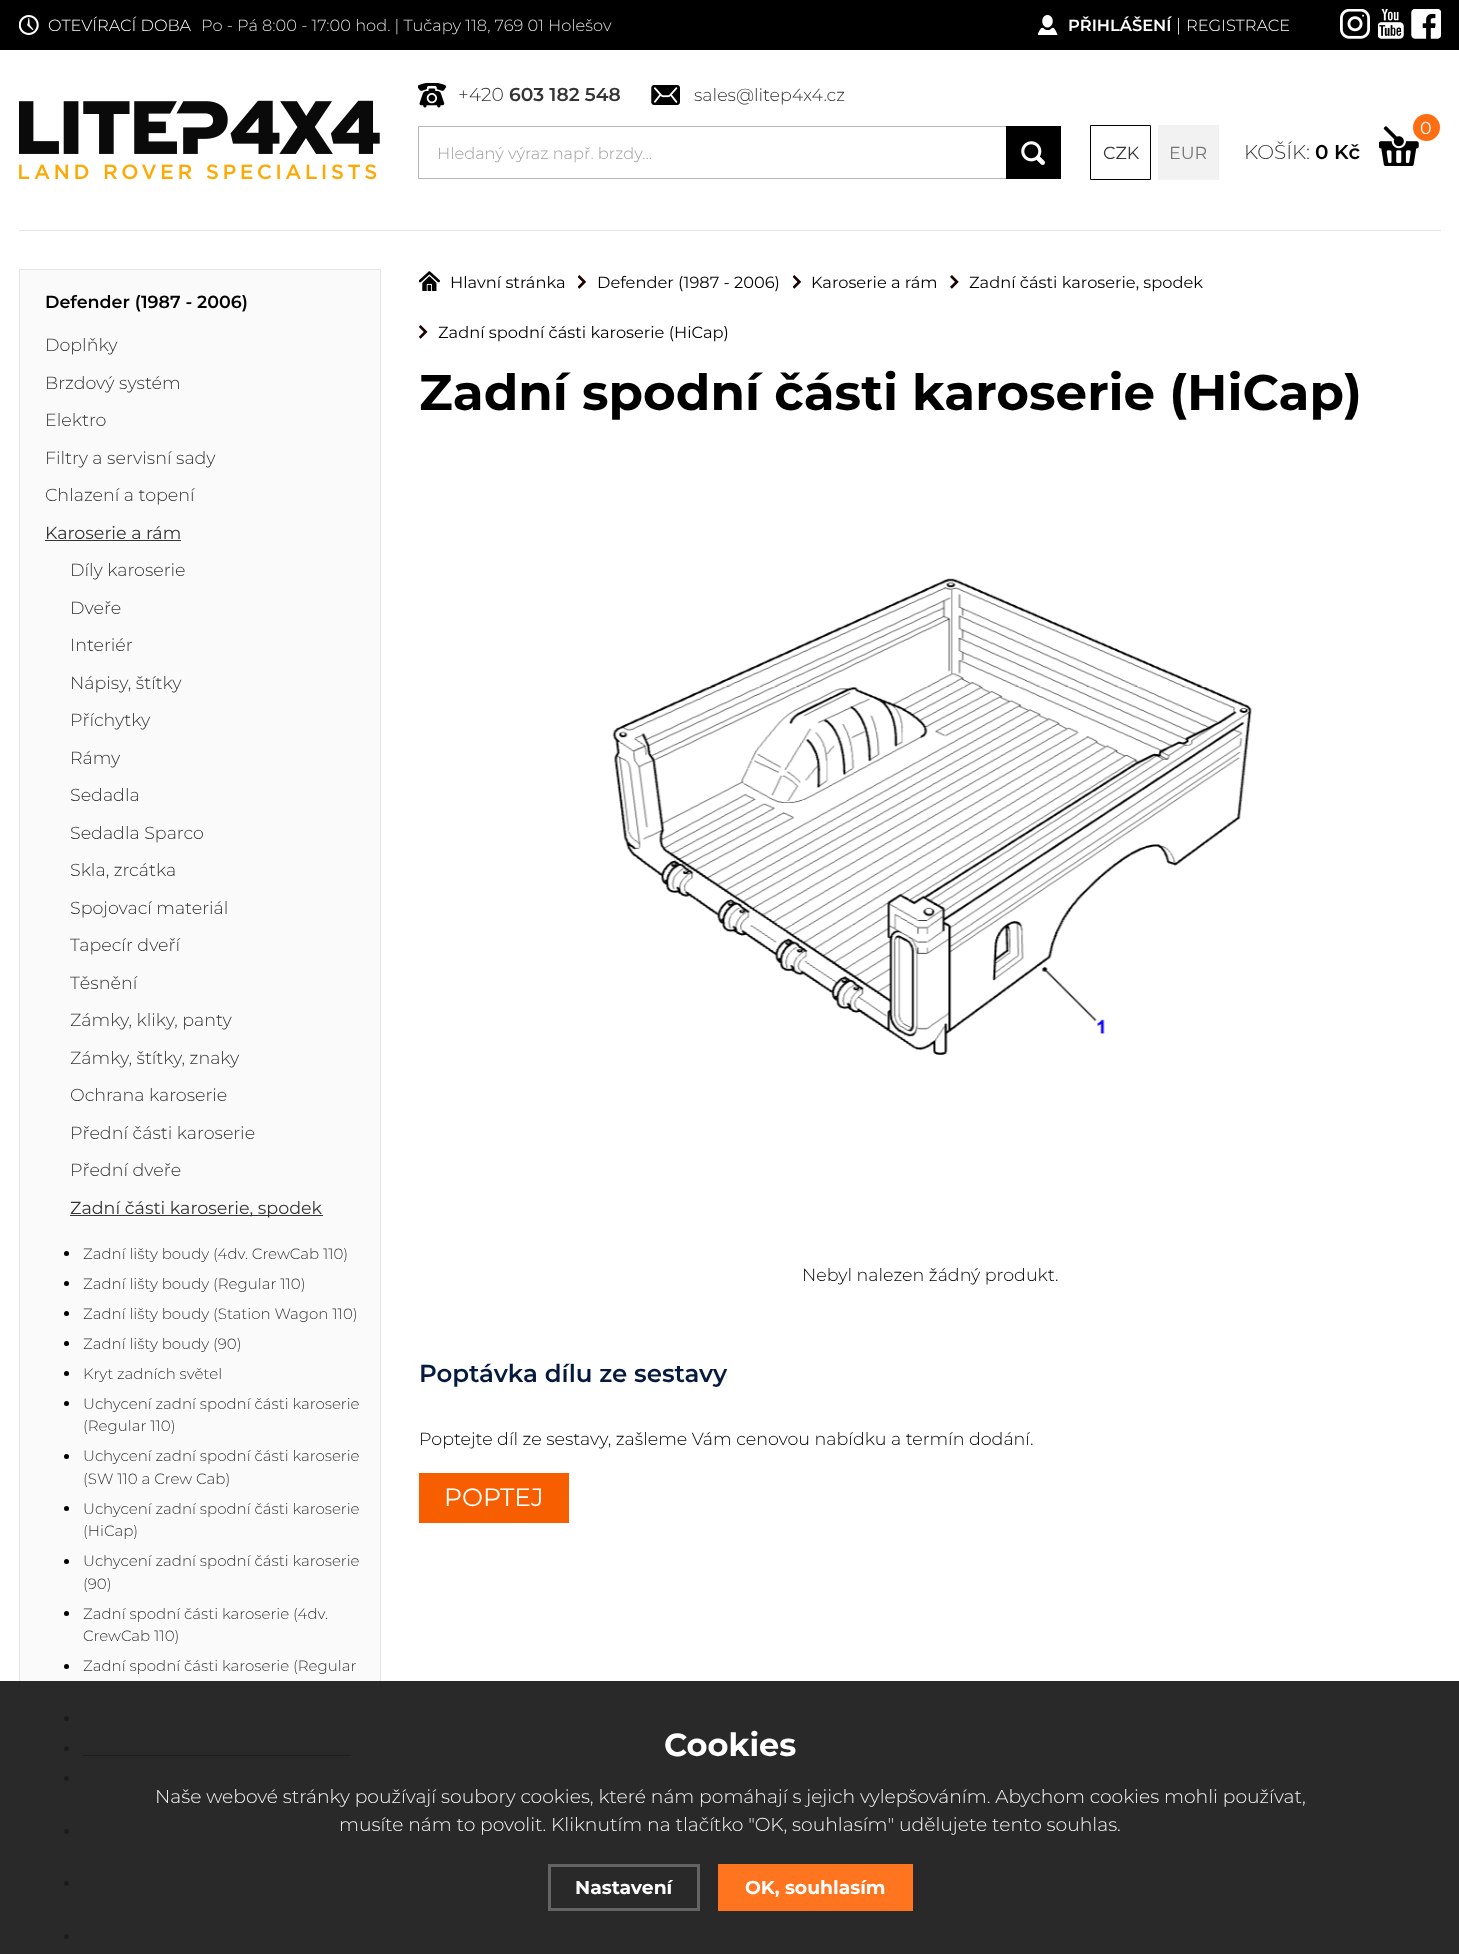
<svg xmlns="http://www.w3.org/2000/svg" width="1459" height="1954">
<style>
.a{font:300 16.25px Montserrat;fill:#fff}
.b{font:300 16.25px Montserrat;fill:#ddd}
.c{font:600 16.25px Montserrat;fill:#fff}
.d{font:300 17.5px Montserrat;fill:#fff}
.e{font:300 18.75px Montserrat;fill:#353535}
.f{font:600 18.75px Montserrat;fill:#353535}
.g{font:300 17.5px Montserrat;fill:#353535}
.h{font:300 16.25px Montserrat;fill:#9e9e9e}
.i{font:17.5px Montserrat;fill:#353535}
.j{font:17.5px Montserrat;fill:#757575}
.k{font:17.5px Montserrat;fill:#fff}
.l{font:300 20px Montserrat;fill:#353535}
.m{font:600 20px Montserrat;fill:#000}
.n{font:600 17.5px Montserrat;fill:#000}
.o{font:300 15px Montserrat;fill:#353535}
.p{font:16.25px Montserrat;fill:#000}
.q{font:bold 50px Montserrat;fill:#000}
.r{font:300 17.5px Montserrat;fill:#000}
.s{font:600 24.5px Montserrat;fill:#061a3f}
.t{font:25px Montserrat;fill:#fff}
.u{font:bold 32px Montserrat;fill:#fff}
.v{font:300 18.75px Montserrat;fill:#f4f4f4}
.w{font:bold 18.75px Montserrat;fill:#fff}
</style>
<rect width="100%" height="100%" fill="#fff"/>
<path fill="#000" d="M0 0h1459v50H0z"/>
<image href="1.png" x="19" y="15" width="20" height="20"/>
<image href="2.png" x="1038" y="15" width="20" height="20"/>
<image href="3.png" x="1340" y="9" width="30" height="30"/>
<image href="4.png" x="1378" y="9" width="26" height="30"/>
<image href="5.png" x="1411" y="9" width="30" height="30"/>
<path fill="#e6e6e6" d="M19 230h1422v1H19z"/>
<image href="6.png" x="19" y="100" width="361" height="80"/>
<image href="7.png" x="418" y="83" width="28" height="25"/>
<image href="8.png" x="651" y="85" width="29" height="20"/>
<path fill="none" stroke="#b5b5b5" d="M418.5 126.5h642v52H418.5z"/>
<path fill="#000" d="M1006 126h55v53H1006z"/>
<image href="9.png" x="1021" y="141" width="24" height="24"/>
<path fill="none" stroke="#000" d="M1090.5 125.5h60v54H1090.5z"/>
<path fill="#f2f2f2" d="M1158 125h61v55H1158z"/>
<image href="10.png" x="1379" y="126" width="40" height="40"/>
<circle fill="#ff6d12" cx="1426.5" cy="127.5" r="13.5"/>
<path fill="none" stroke="#e6e6e6" d="M19.5 269.5h361v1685H19.5z"/>
<path fill="#fafafa" d="M20 270h360v1684H20z"/>
<path fill="#353535" d="M45 540h136v1H45z"/>
<path fill="#353535" d="M70 1215h253v1H70z"/>
<circle fill="#000" cx="66.5" cy="1253.5" r="2.5"/>
<circle fill="#000" cx="66.5" cy="1283.5" r="2.5"/>
<circle fill="#000" cx="66.5" cy="1313.5" r="2.5"/>
<circle fill="#000" cx="66.5" cy="1343.5" r="2.5"/>
<circle fill="#000" cx="66.5" cy="1373.5" r="2.5"/>
<circle fill="#000" cx="66.5" cy="1403.5" r="2.5"/>
<circle fill="#000" cx="66.5" cy="1456.5" r="2.5"/>
<circle fill="#000" cx="66.5" cy="1508.5" r="2.5"/>
<circle fill="#000" cx="66.5" cy="1561.5" r="2.5"/>
<circle fill="#000" cx="66.5" cy="1613.5" r="2.5"/>
<circle fill="#000" cx="66.5" cy="1666.5" r="2.5"/>
<circle fill="#000" cx="66.5" cy="1718.5" r="2.5"/>
<circle fill="#000" cx="66.5" cy="1748.5" r="2.5"/>
<path fill="#353535" d="M83 1755h268v1H83z"/>
<circle fill="#000" cx="66.5" cy="1778.5" r="2.5"/>
<circle fill="#000" cx="66.5" cy="1831.5" r="2.5"/>
<circle fill="#000" cx="66.5" cy="1883.5" r="2.5"/>
<circle fill="#000" cx="66.5" cy="1936.5" r="2.5"/>
<image href="11.png" x="419" y="271" width="21" height="20"/>
<image href="12.png" x="578" y="275" width="8" height="14"/>
<image href="12.png" x="793" y="275" width="8" height="14"/>
<image href="13.png" x="950" y="275" width="9" height="14"/>
<image href="14.png" x="419" y="325" width="9" height="14"/>
<image href="15.png" x="612" y="578" width="640" height="477"/>
<path fill="#f65e00" d="M419 1473h150v50H419z"/>
<path fill="#1d1d1df2" d="M0 1681h1459v273H0z"/>
<path fill="none" stroke="#646465" stroke-width="3" d="M549.5 1865.5h149v44H549.5z"/>
<path fill="#ff741e" d="M718 1864h195v47H718z"/>
<text class="a" x="48" y="31">OTEVÍRACÍ DOBA</text>
<text class="b" x="201" y="31">Po - Pá 8:00 - 17:00 hod. | Tučapy 118, 769 01 Holešov</text>
<text class="c" x="1068" y="31">PŘIHLÁŠENÍ</text>
<text class="d" x="1176" y="31">|</text>
<text class="a" x="1186" y="31">REGISTRACE</text>
<text class="e" x="458" y="101">+420</text>
<text class="f" x="509" y="101">603 182 548</text>
<text class="g" x="694" y="101">sales@litep4x4.cz</text>
<text class="h" x="437" y="159">Hledaný výraz např. brzdy...</text>
<text class="i" x="1103" y="159">CZK</text>
<text class="j" x="1169" y="159">EUR</text>
<text class="k" x="1420" y="134">0</text>
<text class="l" x="1244" y="159">KOŠÍK:</text>
<text class="m" x="1315" y="159">0 Kč</text>
<text class="n" x="45" y="308">Defender (1987 - 2006)</text>
<text class="g" x="45" y="351">Doplňky</text>
<text class="g" x="45" y="389">Brzdový systém</text>
<text class="g" x="45" y="426">Elektro</text>
<text class="g" x="45" y="464">Filtry a servisní sady</text>
<text class="g" x="45" y="501">Chlazení a topení</text>
<text class="i" x="45" y="539">Karoserie a rám</text>
<text class="g" x="70" y="576">Díly karoserie</text>
<text class="g" x="70" y="614">Dveře</text>
<text class="g" x="70" y="651">Interiér</text>
<text class="g" x="70" y="689">Nápisy, štítky</text>
<text class="g" x="70" y="726">Příchytky</text>
<text class="g" x="70" y="764">Rámy</text>
<text class="g" x="70" y="801">Sedadla</text>
<text class="g" x="70" y="839">Sedadla Sparco</text>
<text class="g" x="70" y="876">Skla, zrcátka</text>
<text class="g" x="70" y="914">Spojovací materiál</text>
<text class="g" x="70" y="951">Tapecír dveří</text>
<text class="g" x="70" y="989">Těsnění</text>
<text class="g" x="70" y="1026">Zámky, kliky, panty</text>
<text class="g" x="70" y="1064">Zámky, štítky, znaky</text>
<text class="g" x="70" y="1101">Ochrana karoserie</text>
<text class="g" x="70" y="1139">Přední části karoserie</text>
<text class="g" x="70" y="1176">Přední dveře</text>
<text class="i" x="70" y="1214">Zadní části karoserie, spodek</text>
<text class="o" x="83" y="1259">Zadní lišty boudy (4dv. CrewCab 110)</text>
<text class="o" x="83" y="1289">Zadní lišty boudy (Regular 110)</text>
<text class="o" x="83" y="1319">Zadní lišty boudy (Station Wagon 110)</text>
<text class="o" x="83" y="1349">Zadní lišty boudy (90)</text>
<text class="o" x="83" y="1379">Kryt zadních světel</text>
<text class="o" x="83" y="1409">Uchycení zadní spodní části karoserie</text>
<text class="o" x="83" y="1431">(Regular 110)</text>
<text class="o" x="83" y="1461">Uchycení zadní spodní části karoserie</text>
<text class="o" x="83" y="1484">(SW 110 a Crew Cab)</text>
<text class="o" x="83" y="1514">Uchycení zadní spodní části karoserie</text>
<text class="o" x="83" y="1536">(HiCap)</text>
<text class="o" x="83" y="1566">Uchycení zadní spodní části karoserie</text>
<text class="o" x="83" y="1589">(90)</text>
<text class="o" x="83" y="1619">Zadní spodní části karoserie (4dv.</text>
<text class="o" x="83" y="1641">CrewCab 110)</text>
<text class="o" x="83" y="1671">Zadní spodní části karoserie (Regular</text>
<text class="p" x="450" y="288">Hlavní stránka</text>
<text class="p" x="597" y="288">Defender (1987 - 2006)</text>
<text class="p" x="811" y="288">Karoserie a rám</text>
<text class="p" x="969" y="288">Zadní části karoserie, spodek</text>
<text class="p" x="438" y="338">Zadní spodní části karoserie (HiCap)</text>
<text class="q" x="419" y="410">Zadní spodní části karoserie (HiCap)</text>
<text class="r" x="802" y="1281">Nebyl nalezen žádný produkt.</text>
<text class="s" x="419" y="1382">Poptávka dílu ze sestavy</text>
<text class="r" x="419" y="1445">Poptejte díl ze sestavy, zašleme Vám cenovou nabídku a termín dodání.</text>
<text class="t" x="444" y="1506">POPTEJ</text>
<text class="u" x="664" y="1756">Cookies</text>
<text class="v" x="155" y="1803">Naše webové stránky používají soubory cookies, které nám pomáhají s jejich vylepšováním. Abychom cookies mohli používat,</text>
<text class="v" x="339" y="1831">musíte nám to povolit. Kliknutím na tlačítko "OK, souhlasím" udělujete tento souhlas.</text>
<text class="w" x="575" y="1894">Nastavení</text>
<text class="w" x="745" y="1894">OK, souhlasím</text>
</svg>
